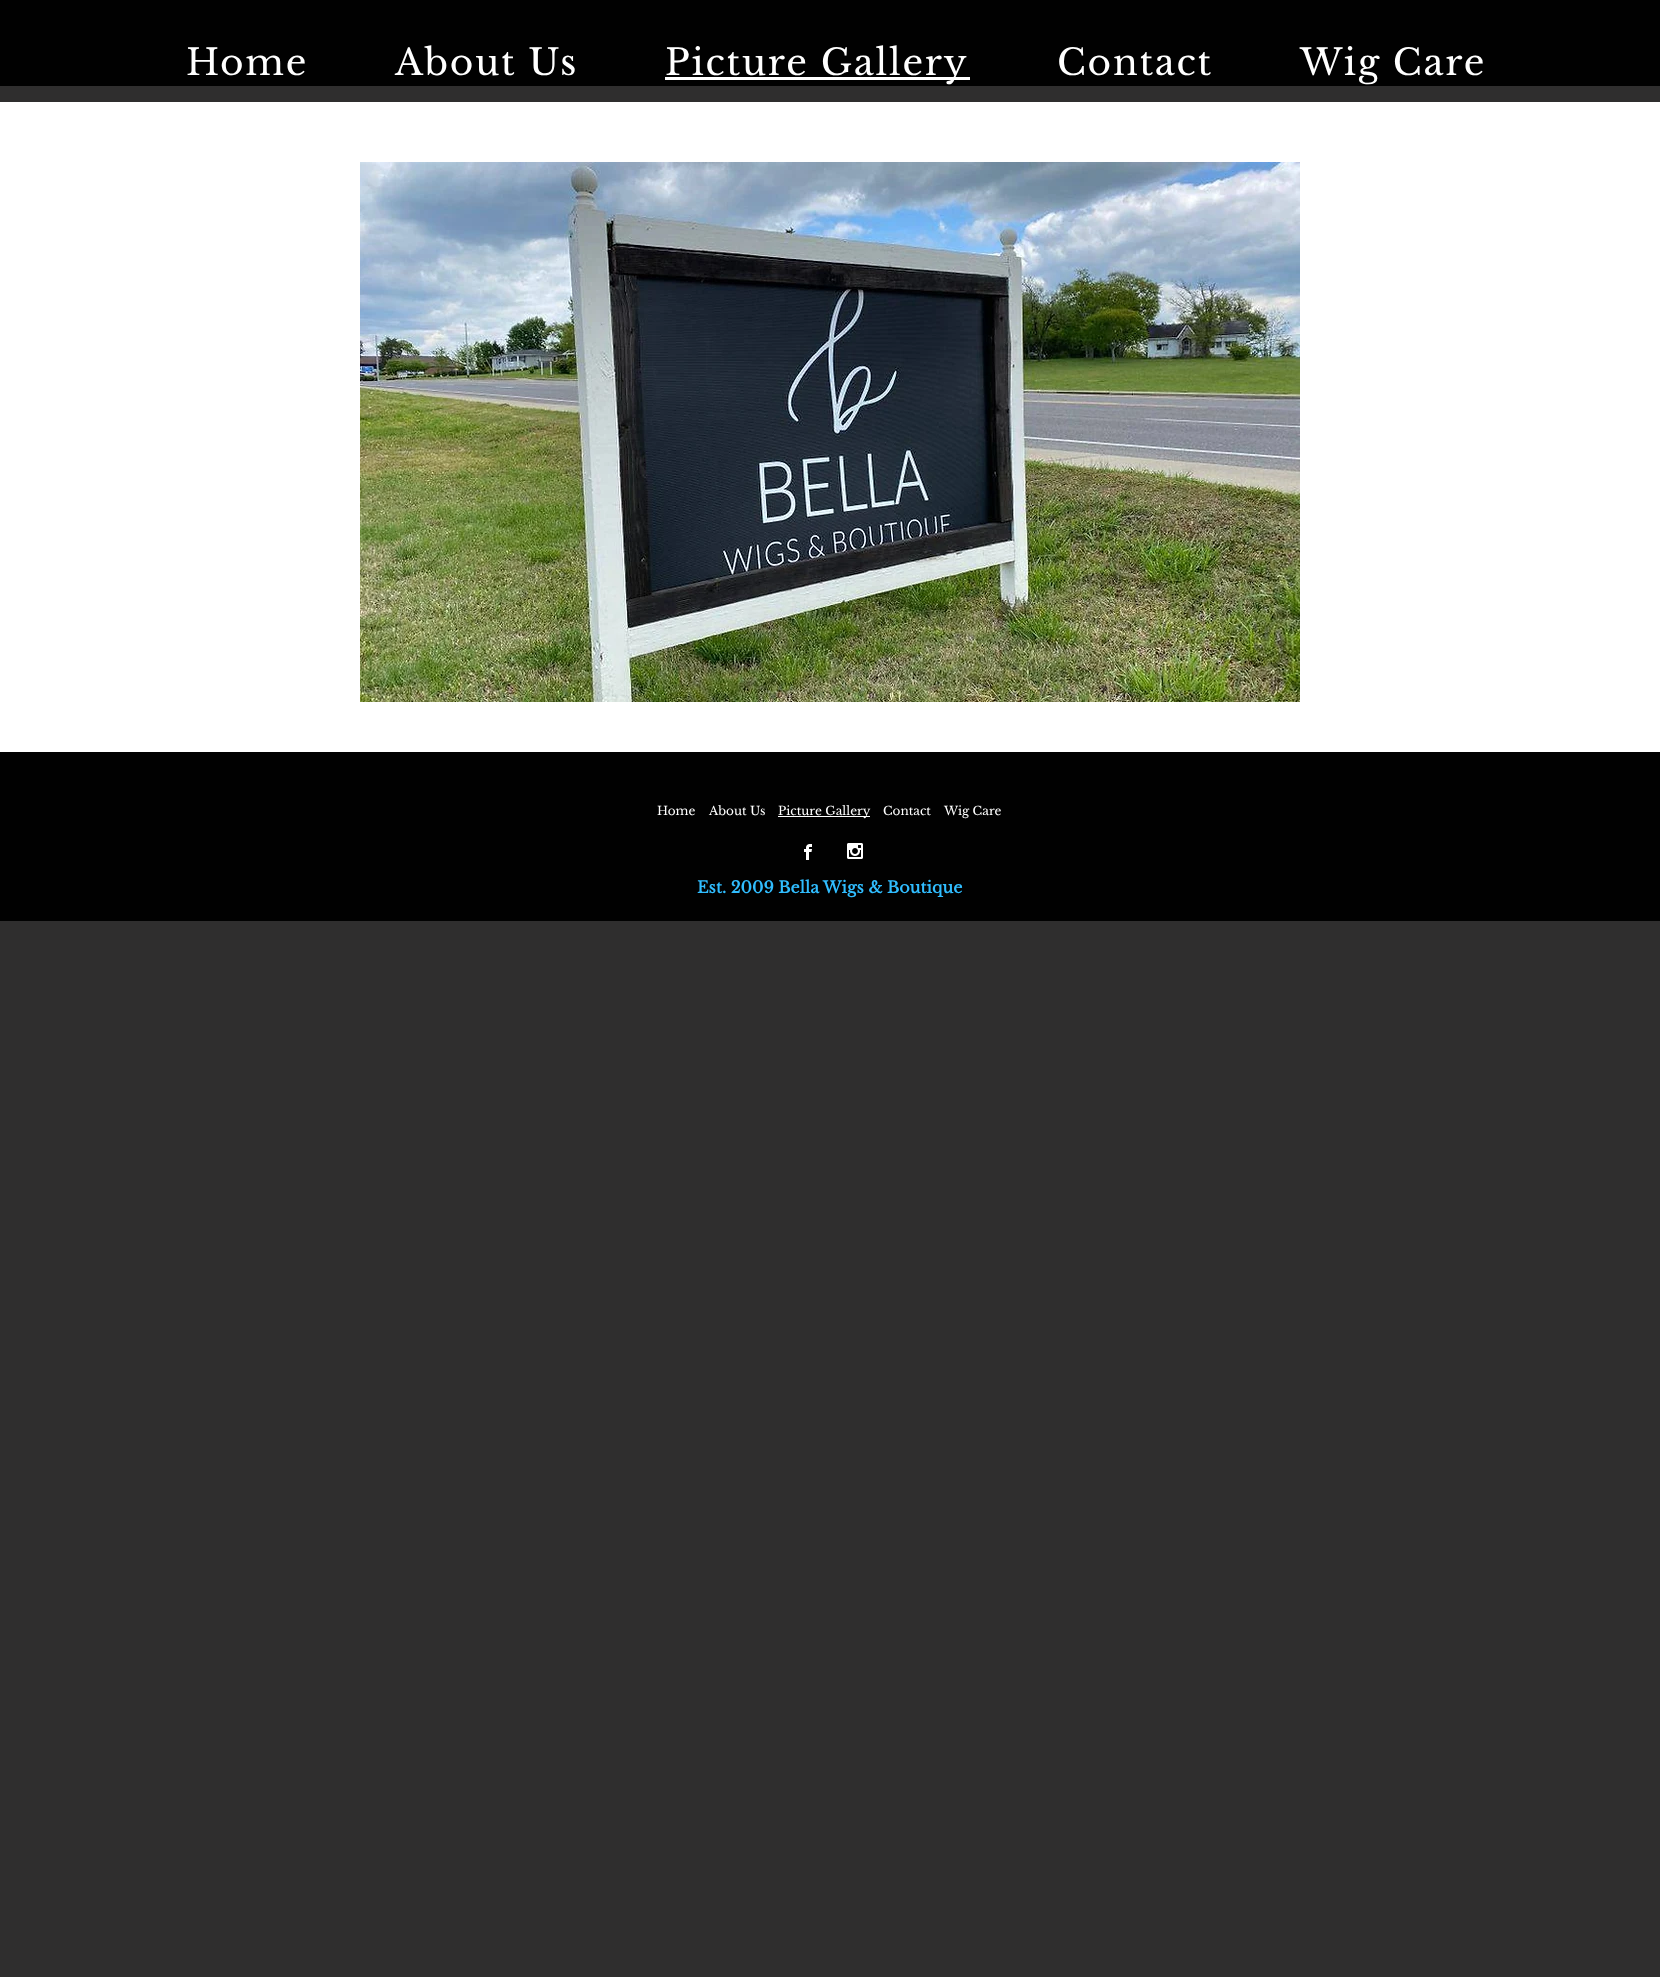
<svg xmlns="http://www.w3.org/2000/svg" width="1660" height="1977">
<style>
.a{font:36px Libre Baskerville;letter-spacing:1.75px;fill:#fff}
.b{font:12px Libre Baskerville;fill:#fff}
.c{font:bold 16px Libre Baskerville;fill:#30bdff}
</style>
<rect width="100%" height="100%" fill="#2f2e2e"/>
<path fill="#010101" d="M0 0h1660v86H0z"/>
<path fill="#fff" d="M665 77h305v3H665z"/>
<path fill="#fff" d="M0 102h1660v650H0z"/>
<image href="1.png" x="360" y="162" width="940" height="540"/>
<path fill="#010101" d="M0 752h1660v169H0z"/>
<path fill="#fff" d="M778 816h92v1H778z"/>
<image href="2.png" x="804" y="844" width="8" height="16"/>
<image href="3.png" x="847" y="843" width="16" height="16"/>
<text class="a" x="186" y="75">Home</text>
<text class="a" x="395" y="75">About Us</text>
<text class="a" x="665" y="75">Picture Gallery</text>
<text class="a" x="1057" y="75">Contact</text>
<text class="a" x="1300" y="75">Wig Care</text>
<text class="b" x="657" y="815">Home</text>
<text class="b" x="709" y="815">About Us</text>
<text class="b" x="778" y="815">Picture Gallery</text>
<text class="b" x="883" y="815">Contact</text>
<text class="b" x="944" y="815">Wig Care</text>
<text class="c" x="697" y="893">Est. 2009 Bella Wigs &amp; Boutique</text>
</svg>
